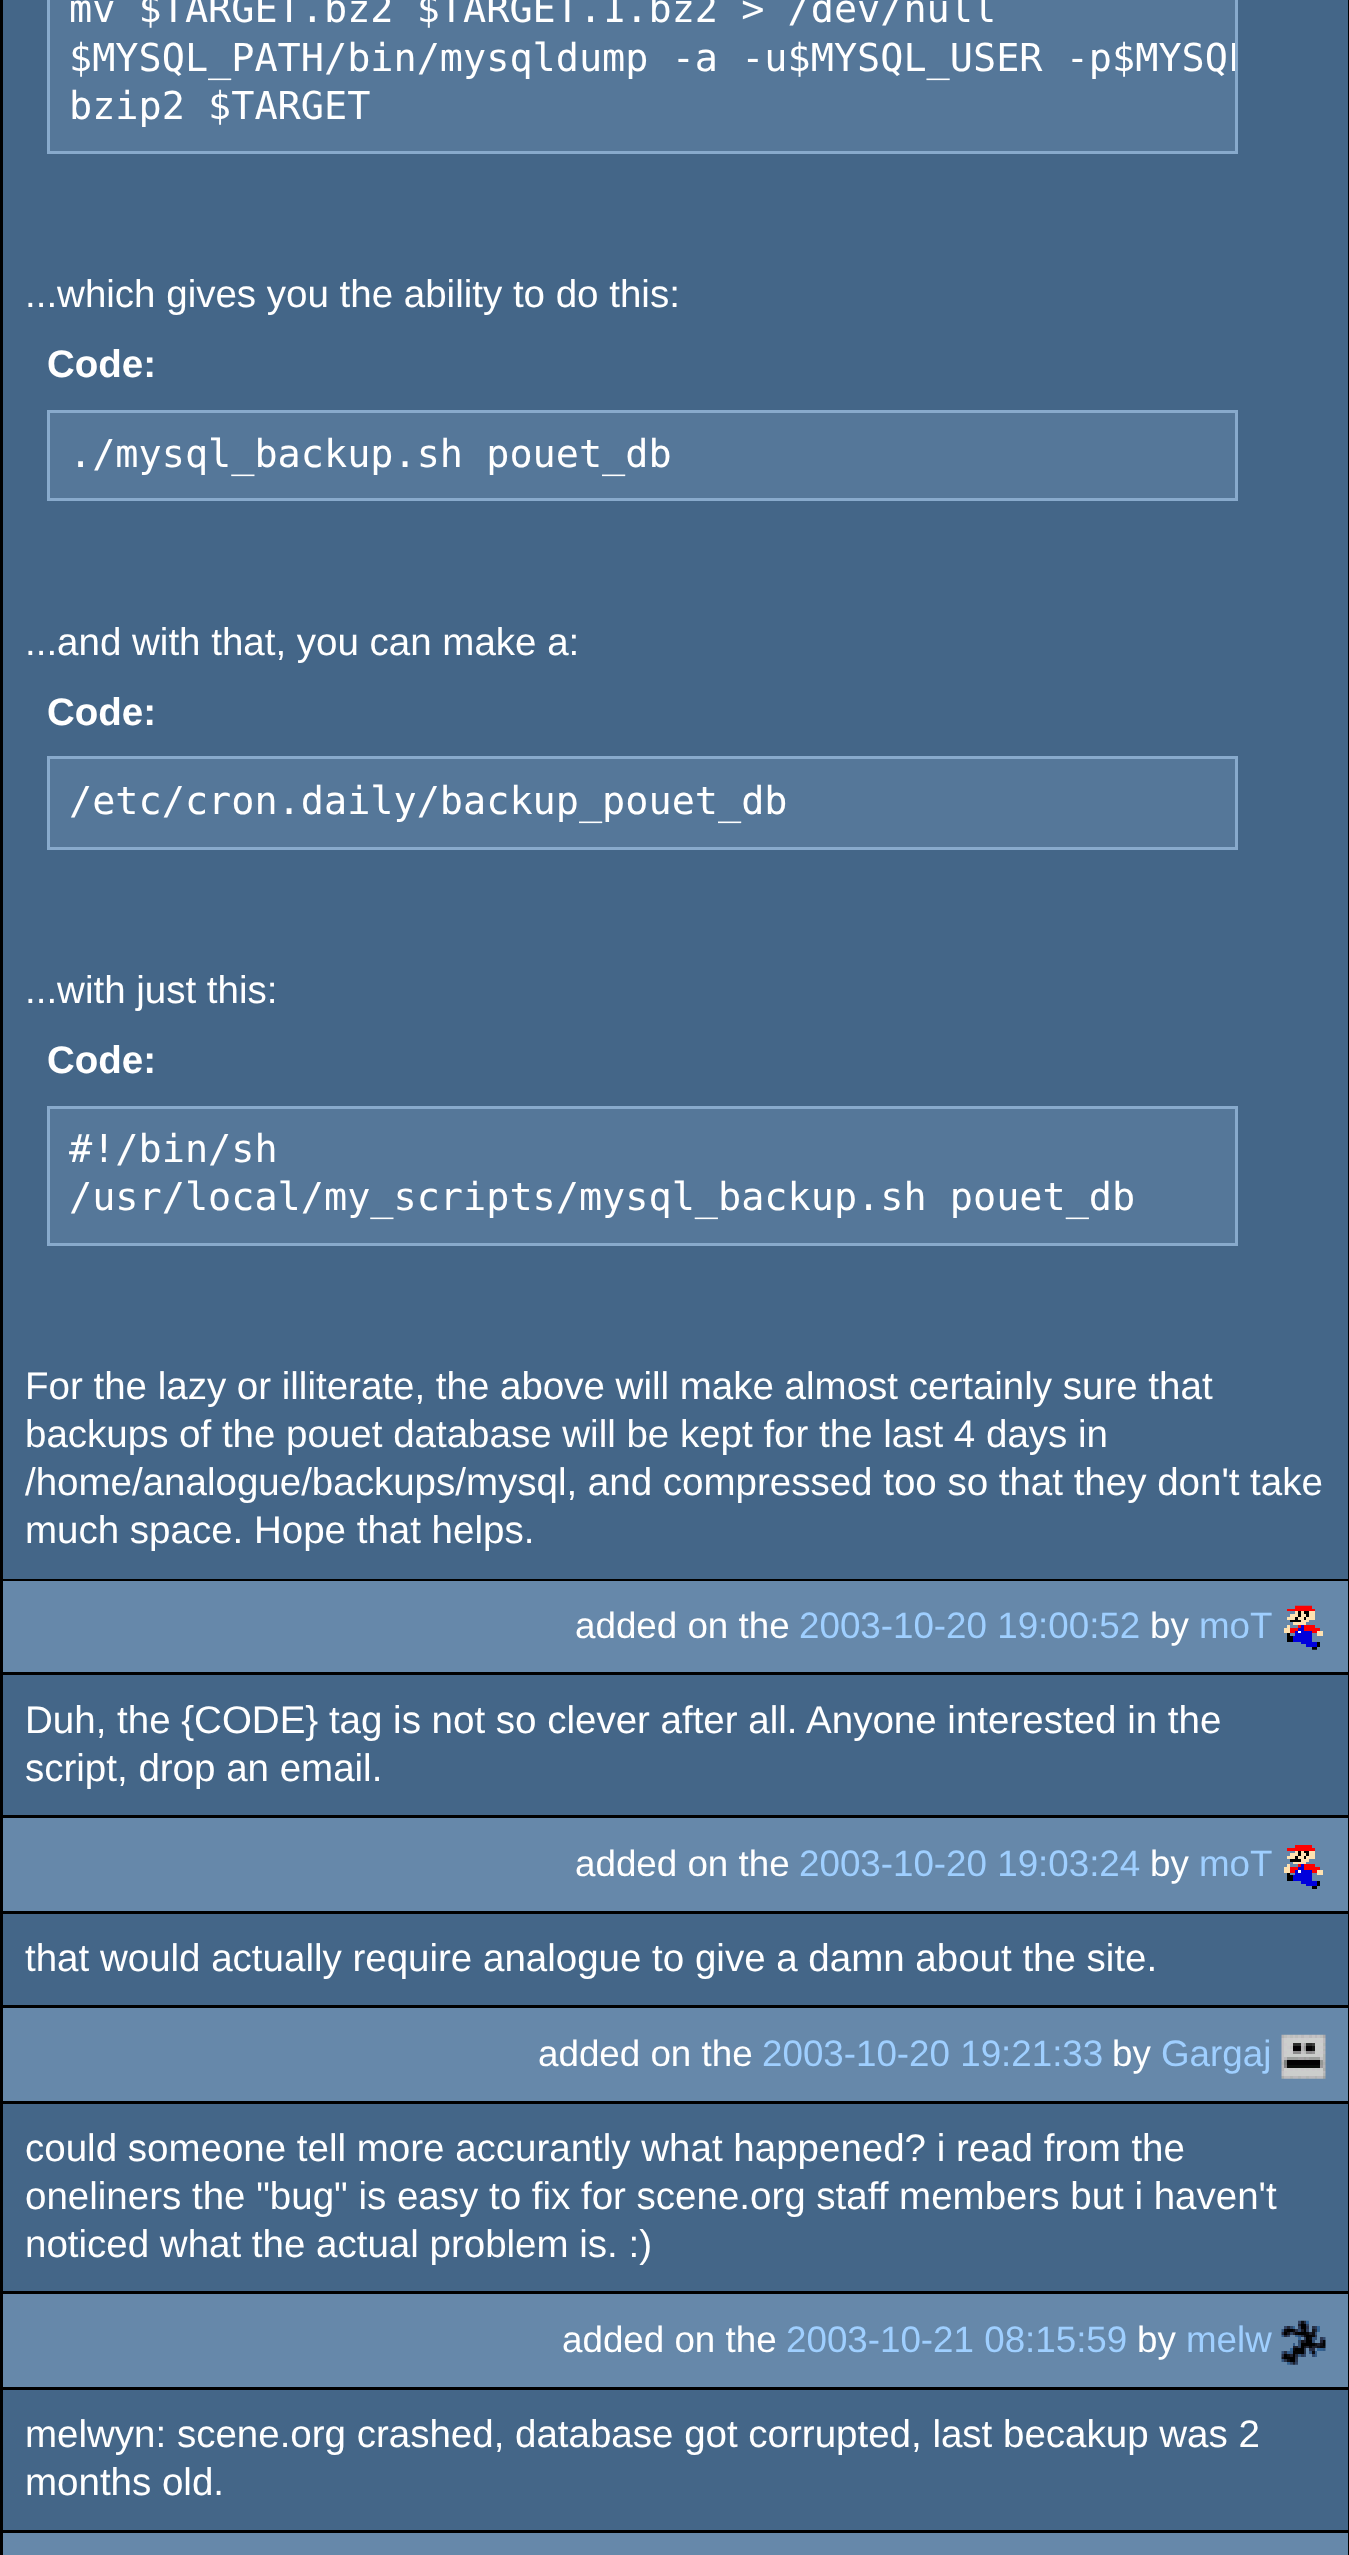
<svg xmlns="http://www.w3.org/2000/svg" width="1349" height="2555">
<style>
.a{font:38.5px DejaVu Sans Mono;fill:#fff}
.b{font:38.5px Liberation Sans;fill:#fff}
.c{font:bold 38.5px Liberation Sans;fill:#fff}
.d{font:36.75px Liberation Sans;fill:#fff}
.e{font:36.75px Liberation Sans;fill:#9fcfff}
</style>
<defs>
<clipPath id="clip1"><path d="M50 0h1185v151H50z"/></clipPath>
</defs>
<rect width="100%" height="100%" fill="#000"/>
<path fill="#468" d="M3 0h1345v1579H3z"/>
<path fill="#579" stroke="#8ac" stroke-width="3" d="M48.5 -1.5h1188v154H48.5z"/>
<path fill="#579" stroke="#8ac" stroke-width="3" d="M48.5 411.5h1188v88H48.5z"/>
<path fill="#579" stroke="#8ac" stroke-width="3" d="M48.5 757.5h1188v91H48.5z"/>
<path fill="#579" stroke="#8ac" stroke-width="3" d="M48.5 1107.5h1188v137H48.5z"/>
<path fill="#68a" d="M3 1581h1345v91H3z"/>
<image href="1.png" x="1284" y="1605" width="39" height="45"/>
<path fill="#468" d="M3 1675h1345v140H3z"/>
<path fill="#68a" d="M3 1818h1345v93H3z"/>
<image href="2.png" x="1284" y="1845" width="39" height="44"/>
<path fill="#468" d="M3 1914h1345v91H3z"/>
<path fill="#68a" d="M3 2008h1345v93H3z"/>
<image href="3.png" x="1281" y="2034" width="45" height="45"/>
<path fill="#468" d="M3 2104h1345v187H3z"/>
<path fill="#68a" d="M3 2294h1345v93H3z"/>
<image href="4.png" x="1281" y="2320" width="45" height="45"/>
<path fill="#468" d="M3 2390h1345v140H3z"/>
<path fill="#68a" d="M3 2533h1345v22H3z"/>
<text class="a" x="69" y="22">mv $TARGET.bz2 $TARGET.1.bz2 &gt; /dev/null</text>
<g clip-path="url(#clip1)">
<text class="a" x="69" y="71">$MYSQL_PATH/bin/mysqldump -a -u$MYSQL_USER -p$MYSQL</text>
</g>
<text class="a" x="69" y="119">bzip2 $TARGET</text>
<text class="b" x="25" y="307">...which gives you the ability to do this:</text>
<text class="c" x="47" y="377">Code:</text>
<text class="a" x="69" y="467">./mysql_backup.sh pouet_db</text>
<text class="b" x="25" y="655">...and with that, you can make a:</text>
<text class="c" x="47" y="725">Code:</text>
<text class="a" x="69" y="814">/etc/cron.daily/backup_pouet_db</text>
<text class="b" x="25" y="1003">...with just this:</text>
<text class="c" x="47" y="1073">Code:</text>
<text class="a" x="69" y="1162">#!/bin/sh</text>
<text class="a" x="69" y="1210">/usr/local/my_scripts/mysql_backup.sh pouet_db</text>
<text class="b" x="25" y="1399">For the lazy or illiterate, the above will make almost certainly sure that</text>
<text class="b" x="25" y="1447">backups of the pouet database will be kept for the last 4 days in</text>
<text class="b" x="25" y="1495">/home/analogue/backups/mysql, and compressed too so that they don't take</text>
<text class="b" x="25" y="1543">much space. Hope that helps.</text>
<text class="d" x="575" y="1638">added on the</text>
<text class="e" x="799" y="1638">2003-10-20 19:00:52</text>
<text class="d" x="1150" y="1638">by</text>
<text class="e" x="1199" y="1638">moT</text>
<text class="b" x="25" y="1733">Duh, the {CODE} tag is not so clever after all. Anyone interested in the</text>
<text class="b" x="25" y="1781">script, drop an email.</text>
<text class="d" x="575" y="1876">added on the</text>
<text class="e" x="799" y="1876">2003-10-20 19:03:24</text>
<text class="d" x="1150" y="1876">by</text>
<text class="e" x="1199" y="1876">moT</text>
<text class="b" x="25" y="1971">that would actually require analogue to give a damn about the site.</text>
<text class="d" x="538" y="2066">added on the</text>
<text class="e" x="762" y="2066">2003-10-20 19:21:33</text>
<text class="d" x="1112" y="2066">by</text>
<text class="e" x="1161" y="2066">Gargaj</text>
<text class="b" x="25" y="2161">could someone tell more accurantly what happened? i read from the</text>
<text class="b" x="25" y="2209">oneliners the "bug" is easy to fix for scene.org staff members but i haven't</text>
<text class="b" x="25" y="2257">noticed what the actual problem is. :)</text>
<text class="d" x="562" y="2352">added on the</text>
<text class="e" x="786" y="2352">2003-10-21 08:15:59</text>
<text class="d" x="1137" y="2352">by</text>
<text class="e" x="1186" y="2352">melw</text>
<text class="b" x="25" y="2447">melwyn: scene.org crashed, database got corrupted, last becakup was 2</text>
<text class="b" x="25" y="2495">months old.</text>
</svg>
